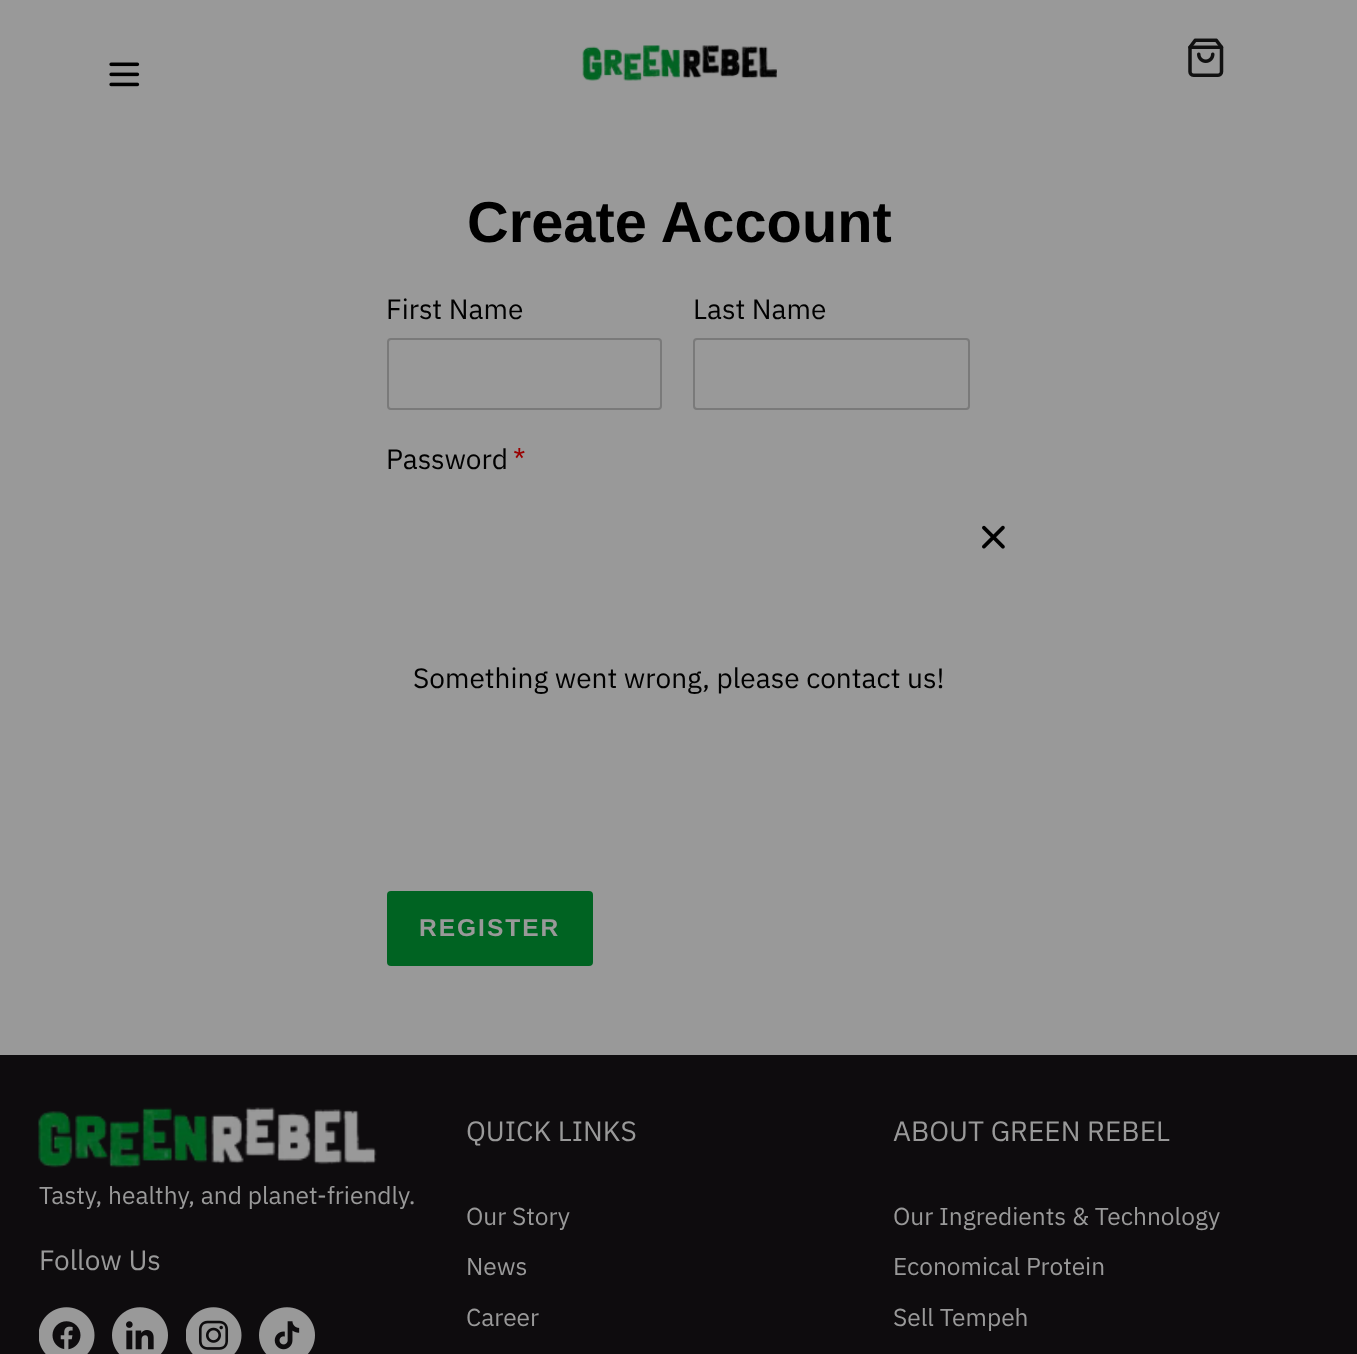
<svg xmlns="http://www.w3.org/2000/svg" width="1357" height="1354">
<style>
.a{font:bold 57.75px Liberation Sans;fill:#000}
.b{font:28px IBM Plex Sans;fill:#000}
.c{font:28px IBM Plex Sans;fill:#900}
.d{font:bold 24.5px Liberation Sans;letter-spacing:2px;fill:#999}
.e{font:24.5px IBM Plex Sans;fill:#999}
.f{font:28px IBM Plex Sans;fill:#999}
</style>
<rect width="100%" height="100%" fill="#999"/>
<image href="1.png" x="109" y="62" width="31" height="25"/>
<image href="2.png" x="582" y="45" width="195" height="36"/>
<image href="3.png" x="1188" y="38" width="36" height="39"/>
<rect fill="none" stroke="#7a7a7a" stroke-width="2" x="388" y="339" width="273" height="70" rx="3"/>
<rect fill="none" stroke="#7a7a7a" stroke-width="2" x="694" y="339" width="275" height="70" rx="3"/>
<rect fill="#006322" x="387" y="891" width="206" height="75" rx="4"/>
<path fill="#0e0c0e" d="M0 1055h1357v299H0z"/>
<image href="4.png" x="38" y="1107" width="339" height="61"/>
<image href="5.png" x="39" y="1307" width="56" height="47"/>
<image href="6.png" x="112" y="1307" width="56" height="47"/>
<image href="7.png" x="186" y="1307" width="56" height="47"/>
<image href="8.png" x="259" y="1307" width="56" height="47"/>
<image href="9.png" x="982" y="525" width="23" height="24"/>
<text class="a" x="467" y="242">Create Account</text>
<text class="b" x="386" y="319">First Name</text>
<text class="b" x="693" y="319">Last Name</text>
<text class="b" x="386" y="469">Password</text>
<text class="c" x="513" y="469">*</text>
<text class="d" x="419" y="936">REGISTER</text>
<text class="e" x="39" y="1204">Tasty, healthy, and planet-friendly.</text>
<text class="f" x="39" y="1270">Follow Us</text>
<text class="f" x="466" y="1141">QUICK LINKS</text>
<text class="e" x="466" y="1225">Our Story</text>
<text class="e" x="466" y="1275">News</text>
<text class="e" x="466" y="1326">Career</text>
<text class="f" x="893" y="1141">ABOUT GREEN REBEL</text>
<text class="e" x="893" y="1225">Our Ingredients &amp; Technology</text>
<text class="e" x="893" y="1275">Economical Protein</text>
<text class="e" x="893" y="1326">Sell Tempeh</text>
<text class="b" x="413" y="688">Something went wrong, please contact us!</text>
</svg>
